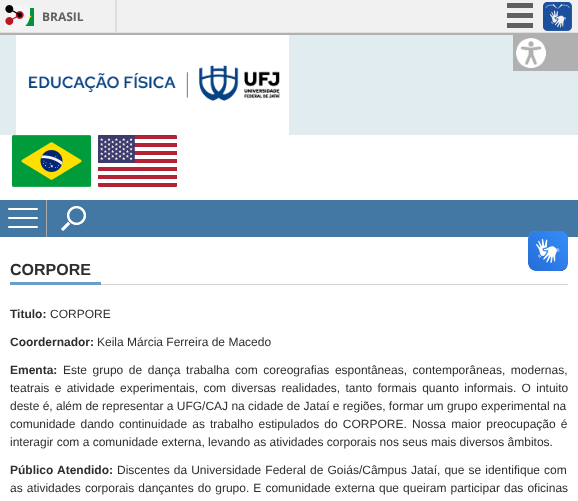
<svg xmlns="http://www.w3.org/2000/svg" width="578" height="501">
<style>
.a{font:bold 12px Open Sans;fill:#606060}
.b{font:bold 16px Liberation Sans;fill:#2e2e2e}
.c{font:bold 12px Liberation Sans;fill:#2e2e2e}
.d{font:12px Liberation Sans;fill:#2e2e2e}
</style>
<rect width="100%" height="100%" fill="#fff"/>
<path fill="#f1f1f1" d="M0 0h578v32H0z"/>
<image href="2.png" x="25" y="8" width="9" height="18"/>
<image href="1.png" x="5" y="5" width="25" height="25"/>
<path fill="#dfdfdf" d="M0 32h578v1H0z"/>
<path fill="#dfdfdf" d="M115 0h2v32H115z"/>
<path fill="#606060" d="M507 3h26v5H507z"/>
<path fill="#606060" d="M507 13h26v5H507z"/>
<path fill="#606060" d="M507 23h26v5H507z"/>
<image href="3.png" x="543" y="2" width="29" height="29"/>
<path fill="#4478a4" d="M0 200h578v37H0z"/>
<image href="4.png" x="528" y="231" width="40" height="40"/>
<image href="5.png" x="528" y="231" width="40" height="40"/>
<path fill="#b0b0b0" d="M0 33h578v2H0z"/>
<path fill="#e1ecf1" d="M0 35h578v100H0z"/>
<path fill="#b0b0b0" d="M513 35h65v36H513z"/>
<image href="6.png" x="516" y="38" width="30" height="30"/>
<image href="7.png" x="16" y="35" width="273" height="100"/>
<image href="8.png" x="12" y="135" width="79" height="52"/>
<image href="9.png" x="98" y="135" width="79" height="52"/>
<path fill="#aaa" d="M46 200h1v37H46z"/>
<rect fill="#fff" x="8" y="217" width="30" height="2" rx="1"/>
<rect fill="#fff" x="8" y="208" width="30" height="2" rx="1"/>
<rect fill="#fff" x="8" y="226" width="30" height="2" rx="1"/>
<image href="10.png" x="61" y="206" width="25" height="25"/>
<path fill="#d3d3d3" d="M101 284h467v1H101z"/>
<path fill="#689eca" d="M10 282h91v3H10z"/>
<text class="a" x="42" y="21">BRASIL</text>
<text class="b" x="10" y="275">CORPORE</text>
<text class="c" x="10" y="318">Titulo:</text>
<text class="d" x="50" y="318">CORPORE</text>
<text class="c" x="10" y="346">Coordernador:</text>
<text class="d" x="97" y="346">Keila Márcia Ferreira de Macedo</text>
<text class="c" x="10" y="374">Ementa:</text>
<text class="d" x="63" y="374" word-spacing="2.25">Este grupo de dança trabalha com coreografias espontâneas, contemporâneas, modernas,</text>
<text class="d" x="10" y="392" word-spacing="2">teatrais e atividade experimentais, com diversas realidades, tanto formais quanto informais. O intuito</text>
<text class="d" x="10" y="410">deste é, além de representar a UFG/CAJ na cidade de Jataí e regiões, formar um grupo experimental na</text>
<text class="d" x="10" y="428" word-spacing="1.8">comunidade dando continuidade as trabalho estipulados do CORPORE. Nossa maior preocupação é</text>
<text class="d" x="10" y="446">interagir com a comunidade externa, levando as atividades corporais nos seus mais diversos âmbitos.</text>
<text class="c" x="10" y="474" word-spacing="0.75">Público Atendido:</text>
<text class="d" x="117" y="474" word-spacing="0.75">Discentes da Universidade Federal de Goiás/Câmpus Jataí, que se identifique com</text>
<text class="d" x="10" y="492" word-spacing="0.75">as atividades corporais dançantes do grupo. E comunidade externa que queiram participar das oficinas</text>
</svg>
